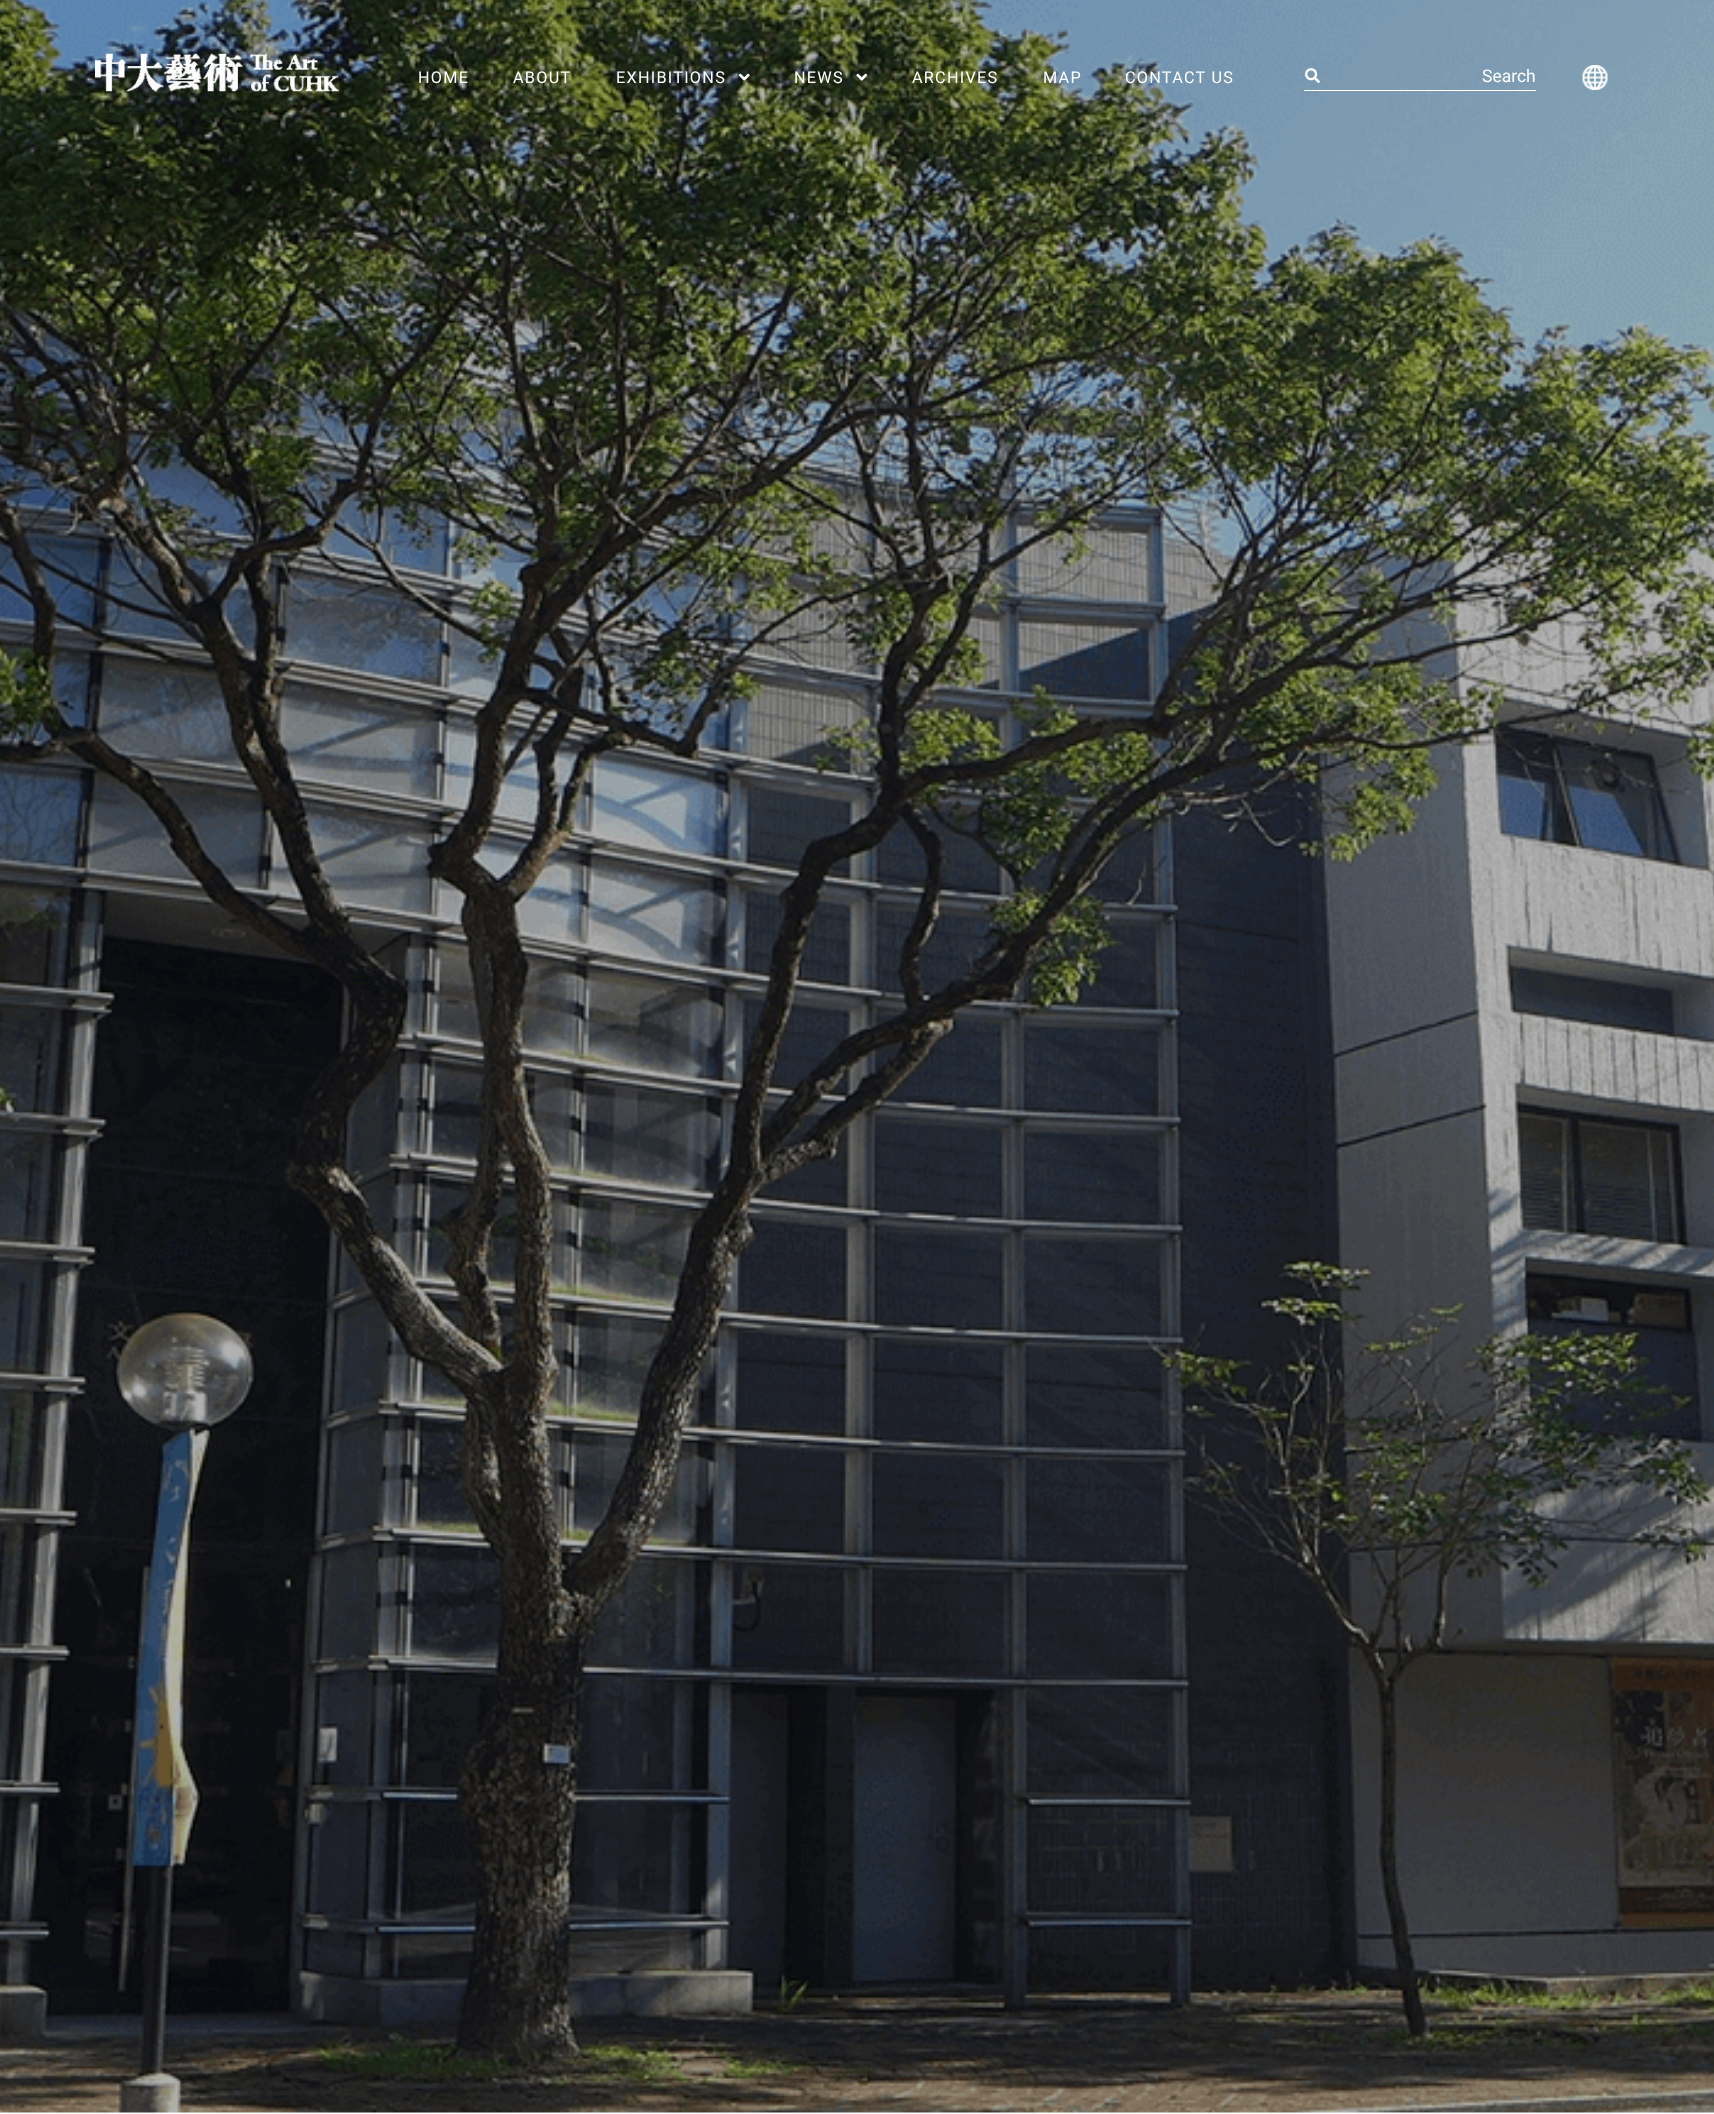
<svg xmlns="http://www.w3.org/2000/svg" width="1714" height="2114">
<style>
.a{font:16.25px Roboto;letter-spacing:1.25px;fill:#fff}
.b{font:17.5px Roboto;fill:#fff}
</style>
<rect width="100%" height="100%" fill="#fff"/>
<image href="1.png" x="0" y="0" width="1714" height="2113"/>
<image href="2.png" x="95" y="53" width="244" height="39"/>
<image href="3.png" x="738" y="73" width="12" height="8"/>
<image href="4.png" x="856" y="73" width="12" height="8"/>
<path fill="#fff" d="M1304 90h232v1H1304z"/>
<image href="5.png" x="1305" y="68" width="15" height="16"/>
<image href="6.png" x="1582" y="65" width="26" height="25"/>
<text class="a" x="418" y="83">HOME</text>
<text class="a" x="513" y="83">ABOUT</text>
<text class="a" x="616" y="83">EXHIBITIONS</text>
<text class="a" x="794" y="83">NEWS</text>
<text class="a" x="912" y="83">ARCHIVES</text>
<text class="a" x="1043" y="83">MAP</text>
<text class="a" x="1125" y="83">CONTACT US</text>
<text class="b" x="1482" y="82">Search</text>
</svg>
